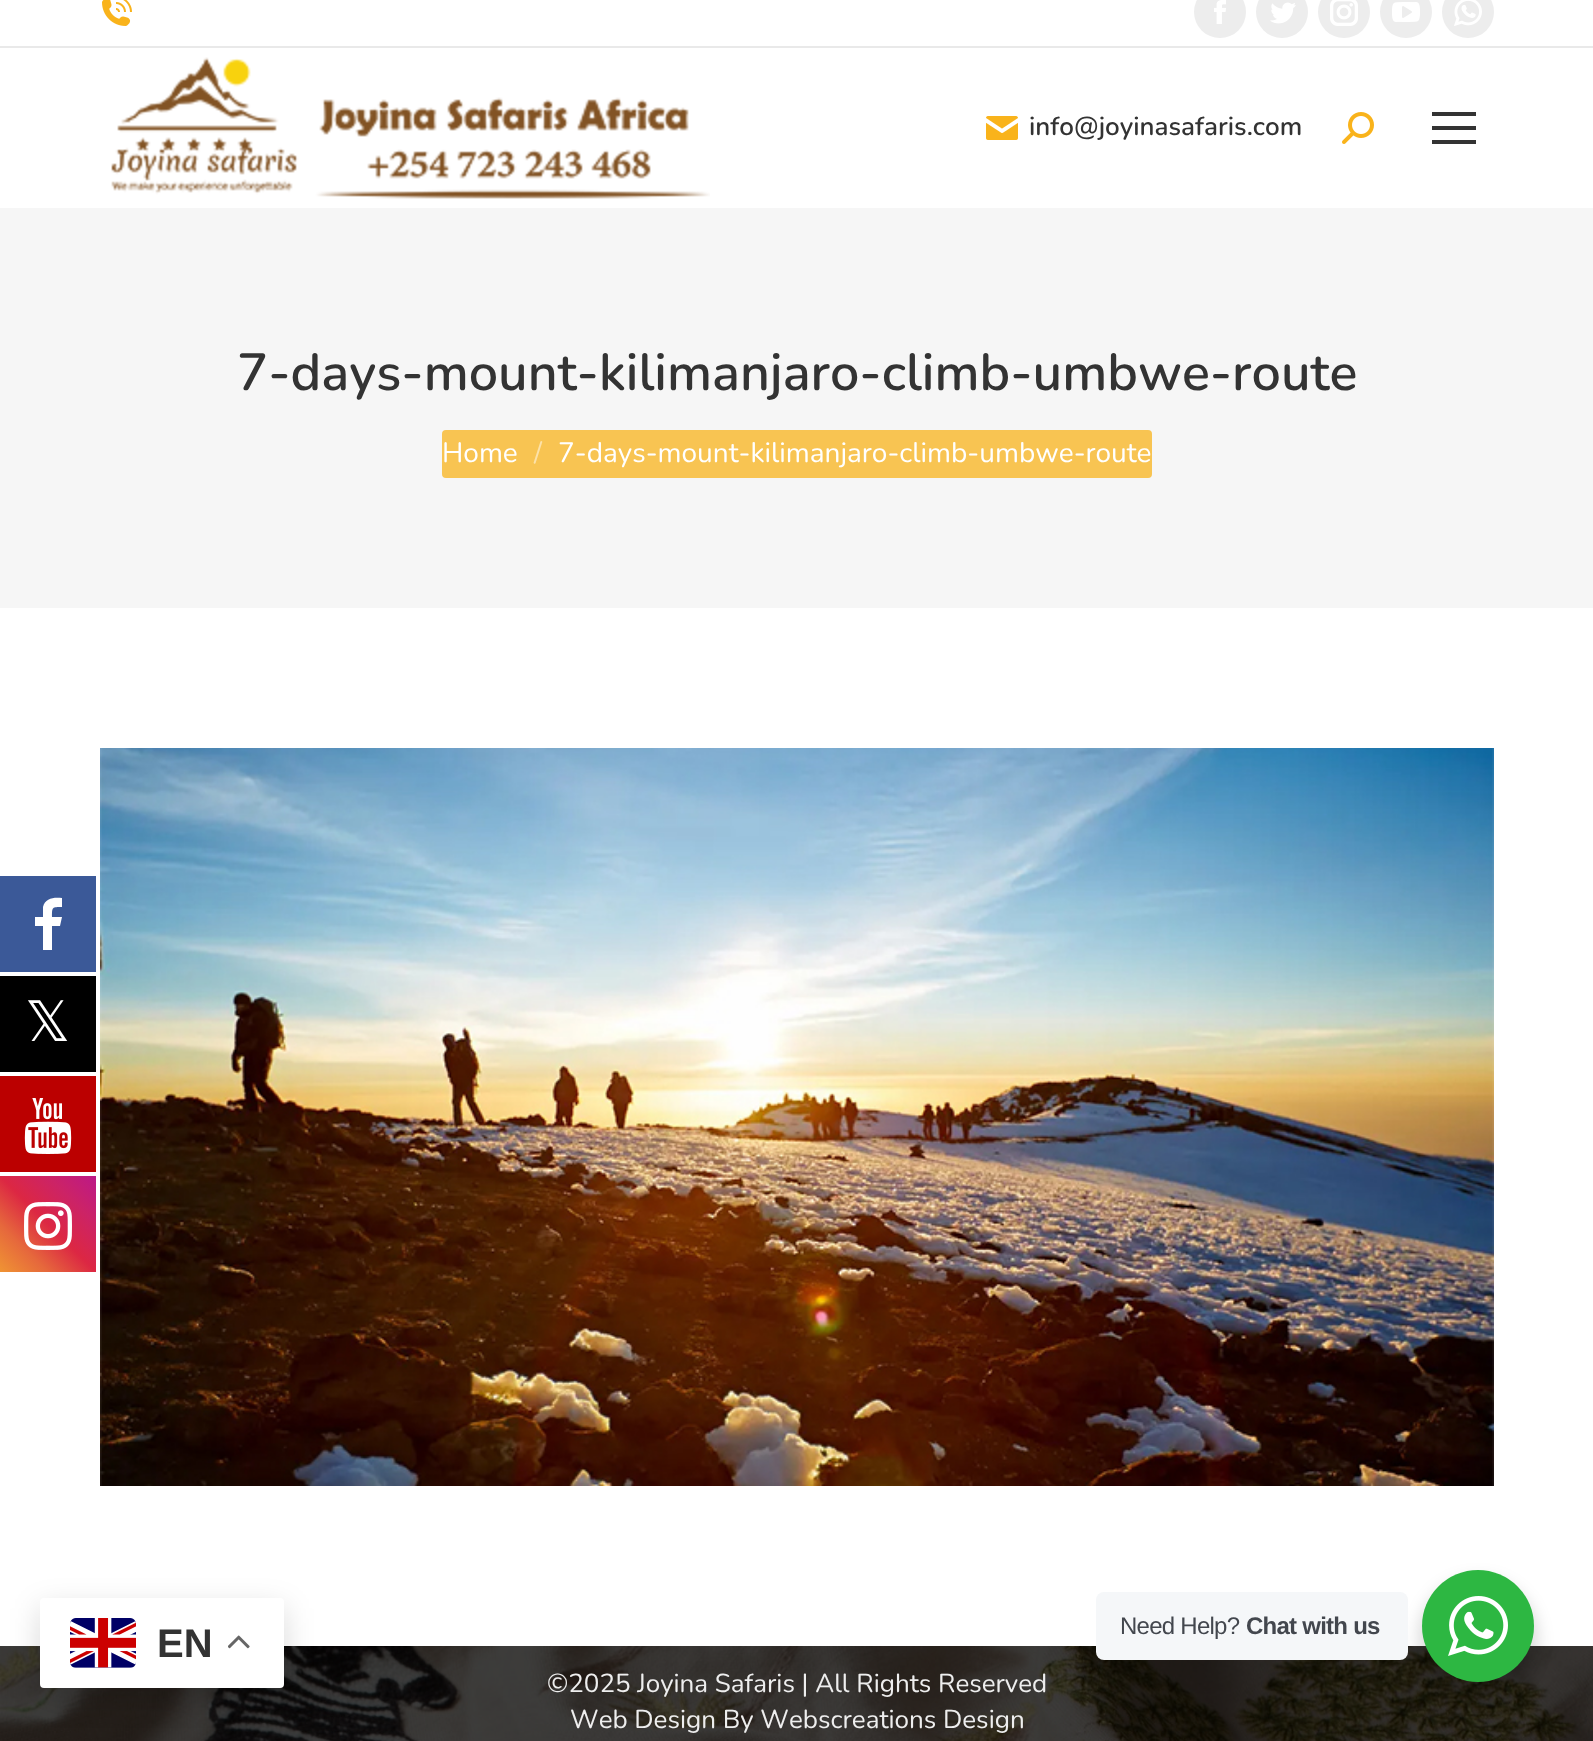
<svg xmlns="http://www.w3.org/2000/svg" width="1593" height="1741">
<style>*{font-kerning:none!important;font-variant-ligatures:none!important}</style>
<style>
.a{font:56px DejaVu Sans;fill:#fff}
.b{font:600 26px Nunito;fill:#333}
.c{font:600 52px Nunito;fill:#333}
.d{font:28px Nunito;fill:#fff}
.e{font:28px Nunito;fill:#fce2a9}
.f{font:26px Nunito;fill:#eee}
.g{font:bold 40px Liberation Sans;fill:#333}
.h{font:24px Liberation Sans;letter-spacing:-0.75px;fill:#43474e}
.i{font:bold 24px Liberation Sans;letter-spacing:-0.75px;fill:#43474e}
</style>
<defs>
<linearGradient id="g1" gradientUnits="userSpaceOnUse" x1="0" y1="1272" x2="96" y2="1176"><stop offset="0" stop-color="#f09433"/><stop offset="0.25" stop-color="#e6683c"/><stop offset="0.5" stop-color="#dc2743"/><stop offset="0.75" stop-color="#cc2366"/><stop offset="1" stop-color="#bc1888"/></linearGradient>
</defs>
<rect width="100%" height="100%" fill="#fff"/>
<path fill="#3b5998" d="M0 876h96v96H0z"/>
<path fill="#fff" d="M62 898v9c-10 0-10 0-10 10h10l-2 9h-8v24h-9v-24h-8v-9h8v-10c2-9 11-10 19-9z"/>
<path fill="#000" d="M0 976h96v96H0z"/>
<path fill="#b00" d="M0 1076h96v96H0z"/>
<image href="1.png" x="24" y="1098" width="48" height="56"/>
<path fill="url(#g1)" d="M0 1176h96v96H0z"/>
<image href="2.png" x="24" y="1202" width="48" height="48"/>
<image href="3.png" x="102" y="0" width="30" height="26"/>
<circle fill="#ededed" cx="1220" cy="12" r="26"/>
<image href="4.png" x="1214" y="0" width="12" height="24"/>
<circle fill="#ededed" cx="1282" cy="12" r="26"/>
<image href="5.png" x="1270" y="2" width="26" height="22"/>
<circle fill="#ededed" cx="1344" cy="12" r="26"/>
<image href="6.png" x="1330" y="0" width="28" height="26"/>
<circle fill="#ededed" cx="1406" cy="12" r="26"/>
<image href="7.png" x="1392" y="2" width="28" height="20"/>
<circle fill="#ededed" cx="1468" cy="12" r="26"/>
<image href="8.png" x="1454" y="0" width="28" height="26"/>
<path fill="#e9e9e9" d="M0 46h1593v2H0z"/>
<image href="9.png" x="111" y="57" width="599" height="142"/>
<image href="10.png" x="986" y="116" width="32" height="24"/>
<image href="11.png" x="1342" y="112" width="32" height="32"/>
<path fill="#333" d="M1432 112h44v4H1432z"/>
<path fill="#333" d="M1432 126h44v4H1432z"/>
<path fill="#333" d="M1432 140h44v4H1432z"/>
<path fill="#f6f6f6" d="M0 208h1593v400H0z"/>
<rect fill="#f8c452" x="442" y="430" width="710" height="48" rx="4"/>
<image href="12.png" x="100" y="748" width="1394" height="738"/>
<image href="13.png" x="0" y="1646" width="1593" height="95"/>
<rect fill="#00000026" filter="blur(15px)" x="40" y="1608" width="244" height="90" rx="4"/>
<rect fill="#fff" x="40" y="1598" width="244" height="90" rx="4"/>
<image href="14.png" x="70" y="1618" width="66" height="50"/>
<image href="15.png" x="228" y="1635" width="22" height="14"/>
<rect fill="#00000024" filter="blur(8px)" x="1418" y="1578" width="120" height="120" rx="60"/>
<rect fill="#f5f7f9" x="1096" y="1592" width="312" height="68" rx="8"/>
<circle fill="#2db742" cx="1478" cy="1626" r="56"/>
<image href="16.png" x="1448" y="1596" width="60" height="60"/>
<text class="a" x="25" y="1041">𝕏</text>
<text class="b" x="1029" y="135">info@joyinasafaris.com</text>
<text class="c" x="237" y="390">7-days-mount-kilimanjaro-climb-umbwe-route</text>
<text class="d" x="442" y="462">Home</text>
<text class="e" x="534" y="462">/</text>
<text class="d" x="558" y="462">7-days-mount-kilimanjaro-climb-umbwe-route</text>
<text class="f" x="547" y="1692">©2025 Joyina Safaris | All Rights Reserved</text>
<text class="f" x="570" y="1728">Web Design By Webscreations Design</text>
<text class="g" x="157" y="1657">EN</text>
<text class="h" x="1120" y="1634">Need Help?</text>
<text class="i" x="1246" y="1634">Chat with us</text>
</svg>
